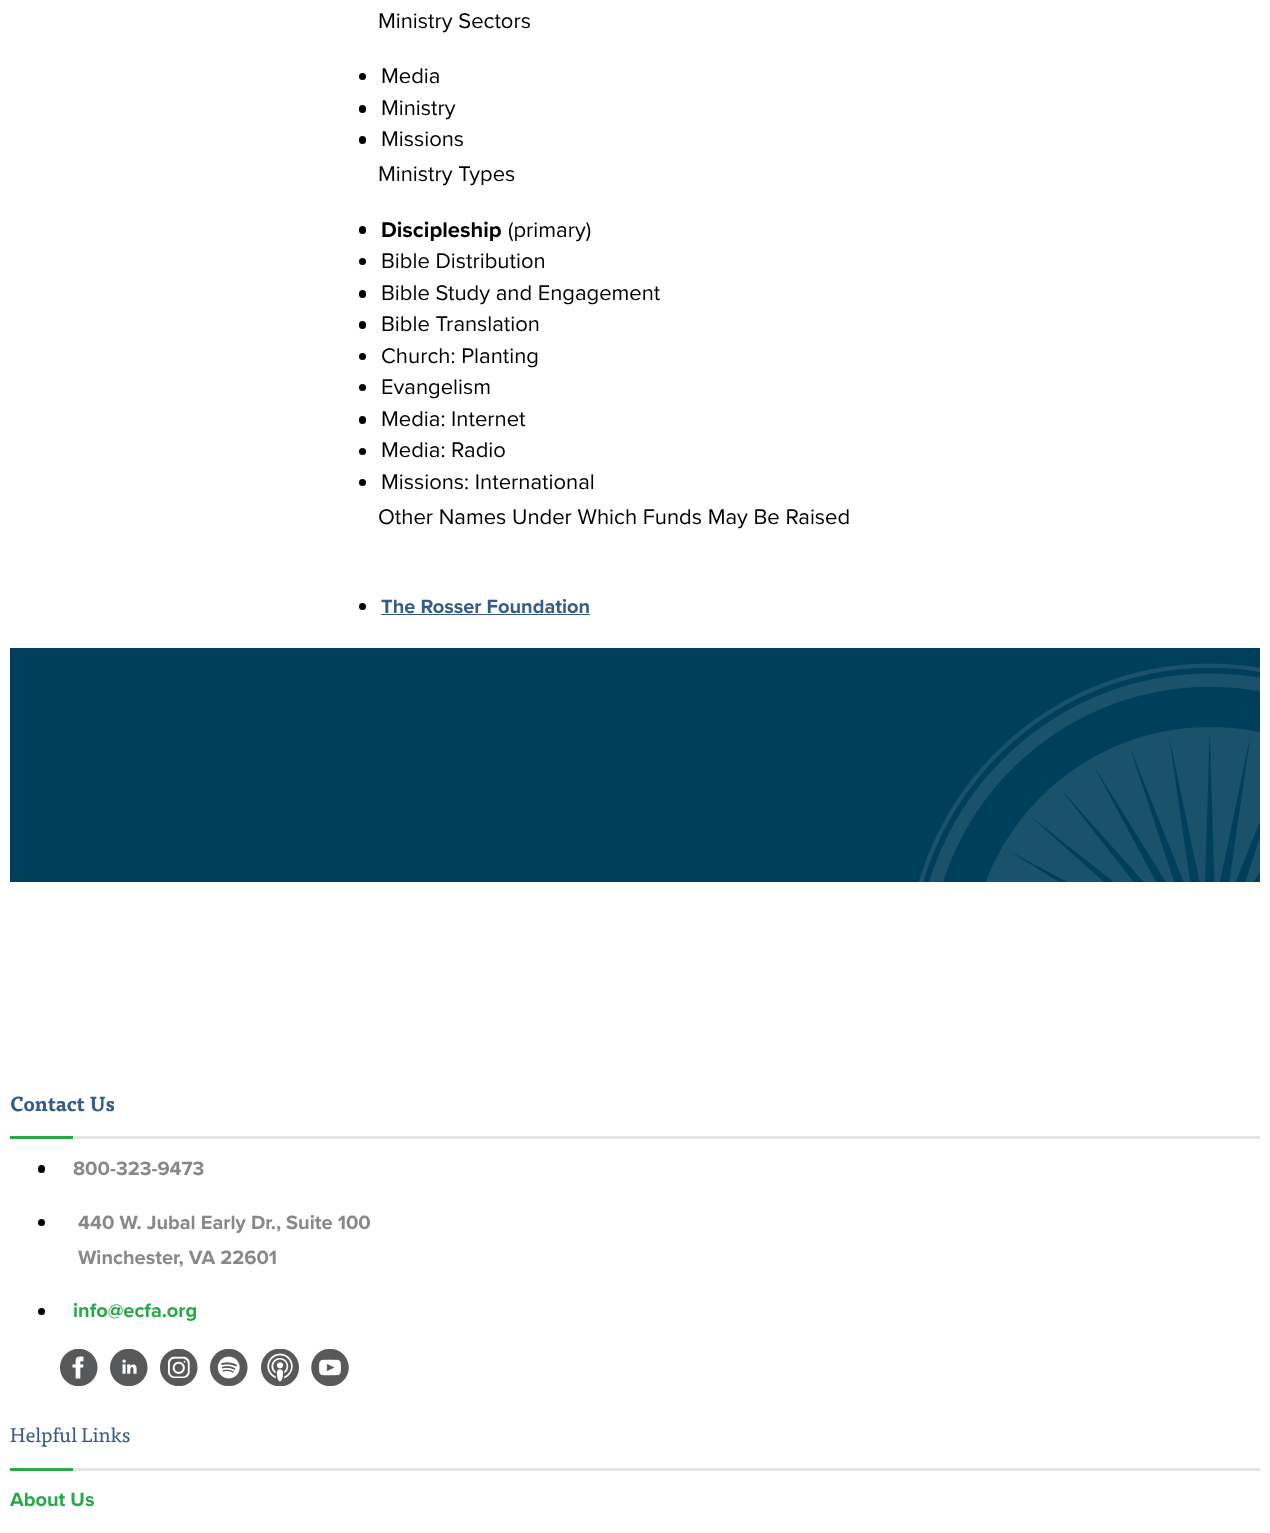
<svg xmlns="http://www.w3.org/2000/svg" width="1270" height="1533">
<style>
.a{font:22px Proxima Nova;fill:#000}
.b{font:bold 22px Proxima Nova;fill:#000}
.c{font:bold 20px Proxima Nova;fill:#345b89}
.d{font:bold 20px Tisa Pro;fill:#345b89}
.e{font:bold 20px Proxima Nova;fill:#888}
.f{font:bold 20px Proxima Nova;fill:#28a949}
.g{font:20px Tisa Pro;fill:#345b89}
</style>
<rect width="100%" height="100%" fill="#fff"/>
<circle fill="#000" cx="362.5" cy="76.5" r="3.5"/>
<rect fill="#000" x="359" y="105" width="7" height="8" rx="3.5"/>
<rect fill="#000" x="359" y="136" width="7" height="8" rx="3.5"/>
<rect fill="#000" x="359" y="226" width="7" height="8" rx="3.5"/>
<circle fill="#000" cx="362.5" cy="261.5" r="3.5"/>
<rect fill="#000" x="359" y="290" width="7" height="8" rx="3.5"/>
<rect fill="#000" x="359" y="321" width="7" height="8" rx="3.5"/>
<circle fill="#000" cx="362.5" cy="356.5" r="3.5"/>
<circle fill="#000" cx="362.5" cy="387.5" r="3.5"/>
<rect fill="#000" x="359" y="416" width="7" height="8" rx="3.5"/>
<circle fill="#000" cx="362.5" cy="451.5" r="3.5"/>
<circle fill="#000" cx="362.5" cy="482.5" r="3.5"/>
<circle fill="#000" cx="362.5" cy="606.5" r="3.5"/>
<path fill="#345b89" d="M381 614h209v1H381z"/>
<image href="1.png" x="10" y="648" width="1250" height="234"/>
<path fill="#e5e5e5" d="M73 1136h1187v3H73z"/>
<path fill="#28a949" d="M10 1136h63v3H10z"/>
<rect fill="#000" x="38" y="1165" width="7" height="8" rx="3.5"/>
<circle fill="#000" cx="41.5" cy="1222.5" r="3.5"/>
<circle fill="#000" cx="41.5" cy="1311.5" r="3.5"/>
<image href="2.png" x="60" y="1349" width="38" height="37"/>
<image href="3.png" x="110" y="1349" width="38" height="37"/>
<image href="4.png" x="160" y="1349" width="38" height="37"/>
<image href="5.png" x="210" y="1349" width="38" height="37"/>
<image href="6.png" x="261" y="1349" width="38" height="37"/>
<image href="7.png" x="311" y="1349" width="38" height="37"/>
<path fill="#e5e5e5" d="M73 1468h1187v3H73z"/>
<path fill="#28a949" d="M10 1468h63v3H10z"/>
<text class="a" x="378" y="28">Ministry Sectors</text>
<text class="a" x="381" y="83">Media</text>
<text class="a" x="381" y="115">Ministry</text>
<text class="a" x="381" y="146">Missions</text>
<text class="a" x="378" y="181">Ministry Types</text>
<text class="b" x="381" y="237">Discipleship</text>
<text class="a" x="508" y="237">(primary)</text>
<text class="a" x="381" y="268">Bible Distribution</text>
<text class="a" x="381" y="300">Bible Study and Engagement</text>
<text class="a" x="381" y="331">Bible Translation</text>
<text class="a" x="381" y="363">Church: Planting</text>
<text class="a" x="381" y="394">Evangelism</text>
<text class="a" x="381" y="426">Media: Internet</text>
<text class="a" x="381" y="457">Media: Radio</text>
<text class="a" x="381" y="489">Missions: International</text>
<text class="a" x="378" y="524">Other Names Under Which Funds May Be Raised</text>
<text class="c" x="381" y="613">The Rosser Foundation</text>
<text class="d" x="10" y="1111">Contact Us</text>
<text class="e" x="73" y="1175">800-323-9473</text>
<text class="e" x="78" y="1229">440 W. Jubal Early Dr., Suite 100</text>
<text class="e" x="78" y="1264">Winchester, VA 22601</text>
<text class="f" x="73" y="1317">info@ecfa.org</text>
<text class="g" x="10" y="1442">Helpful Links</text>
<text class="f" x="10" y="1506">About Us</text>
</svg>
